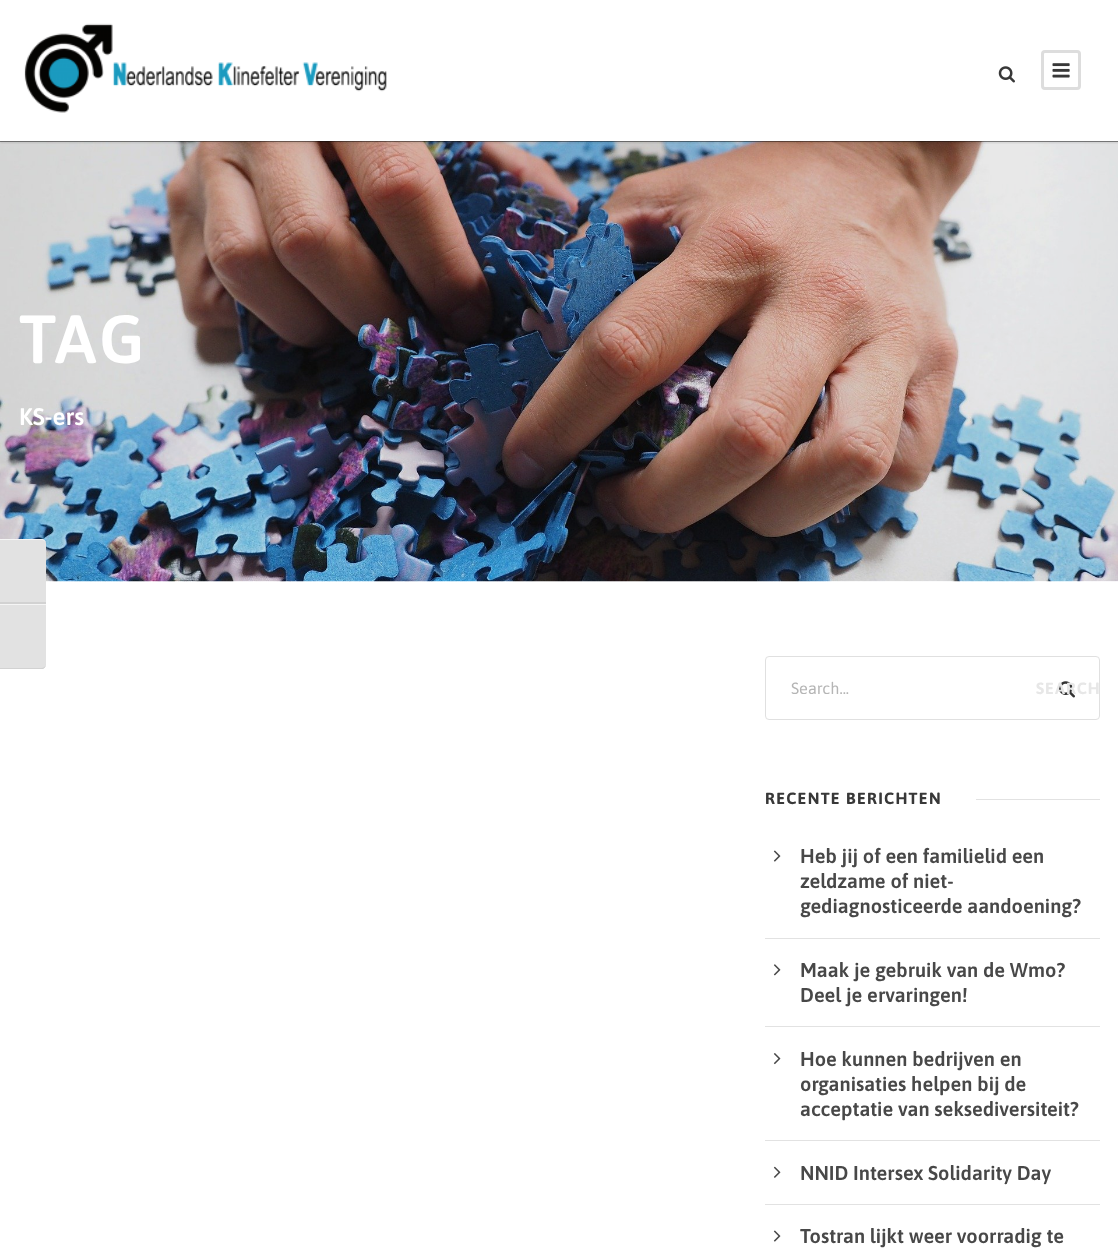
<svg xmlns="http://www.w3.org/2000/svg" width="1118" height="1253">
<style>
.a{font:600 68px Asap;letter-spacing:2.5px;fill:#fff}
.b{font:600 24px Asap;fill:#fff}
.c{font:16.25px Asap;fill:#b5b5b5}
.d{font:bold 16.25px Asap;letter-spacing:1px;fill:#e7e7e7}
.e{font:bold 16.25px Asap;letter-spacing:1.25px;fill:#383838}
.f{font:600 20px Asap;fill:#484848}
</style>
<defs>
<clipPath id="clip1"><path d="M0 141h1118v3H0z"/></clipPath>
</defs>
<rect width="100%" height="100%" fill="#fff"/>
<path fill="#050505" d="M0 141h1118v1H0z"/>
<image href="4.png" x="0" y="141" width="1118" height="441"/>
<g clip-path="url(#clip1)">
<path fill="#0000001a" filter="blur(1px)" d="M0 1h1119v142H0z"/>
</g>
<image href="1.png" x="24" y="23" width="363" height="90"/>
<image href="2.png" x="998" y="66" width="17" height="17"/>
<rect fill="none" stroke="#ddd" stroke-width="3" x="1042.5" y="51.5" width="37" height="37" rx="2.5"/>
<image href="3.png" x="1052" y="63" width="18" height="15"/>
<rect fill="none" stroke="#e0e0e0" x="765.5" y="656.5" width="334" height="63" rx="3.5"/>
<image href="5.png" x="1058" y="681" width="17" height="17"/>
<path fill="#e2e2e2" d="M976 799h124v1H976z"/>
<path fill="#e2e2e2" d="M765 938h335v1H765z"/>
<image href="6.png" x="773" y="850" width="8" height="12"/>
<path fill="#e2e2e2" d="M765 1026h335v1H765z"/>
<image href="7.png" x="773" y="964" width="8" height="12"/>
<path fill="#e2e2e2" d="M765 1140h335v1H765z"/>
<image href="8.png" x="773" y="1053" width="8" height="12"/>
<path fill="#e2e2e2" d="M765 1204h335v1H765z"/>
<image href="9.png" x="773" y="1166" width="8" height="12"/>
<image href="6.png" x="773" y="1230" width="8" height="12"/>
<path fill="#e2e2e2" d="M0 539h41c3 0 5 2 5 5v60h-46z"/>
<path fill="#f5f5f5" d="M0 540h41c3 0 5 2 5 4c0-3-2-5-5-5h-41z"/>
<path fill="#d2d2d2" d="M0 602h46v2H0z"/>
<path fill="#e2e2e2" d="M0 604h46v60c0 3-2 5-5 5h-41z"/>
<path fill="#f5f5f5" d="M0 604h46v1H0z"/>
<path fill="#d2d2d2" d="M43 669c2-1 3-3 3-5c0 2-2 4-5 4h-41v1z"/>
<text class="a" x="19" y="363">TAG</text>
<text class="b" x="19" y="425">KS-ers</text>
<text class="c" x="791" y="694">Search...</text>
<text class="d" x="1036" y="694">SEARCH</text>
<text class="e" x="765" y="804">RECENTE BERICHTEN</text>
<text class="f" x="800" y="863">Heb jij of een familielid een</text>
<text class="f" x="800" y="888">zeldzame of niet-</text>
<text class="f" x="800" y="913">gediagnosticeerde aandoening?</text>
<text class="f" x="800" y="977">Maak je gebruik van de Wmo?</text>
<text class="f" x="800" y="1002">Deel je ervaringen!</text>
<text class="f" x="800" y="1066">Hoe kunnen bedrijven en</text>
<text class="f" x="800" y="1091">organisaties helpen bij de</text>
<text class="f" x="800" y="1116">acceptatie van seksediversiteit?</text>
<text class="f" x="800" y="1180">NNID Intersex Solidarity Day</text>
<text class="f" x="800" y="1243">Tostran lijkt weer voorradig te</text>
</svg>
